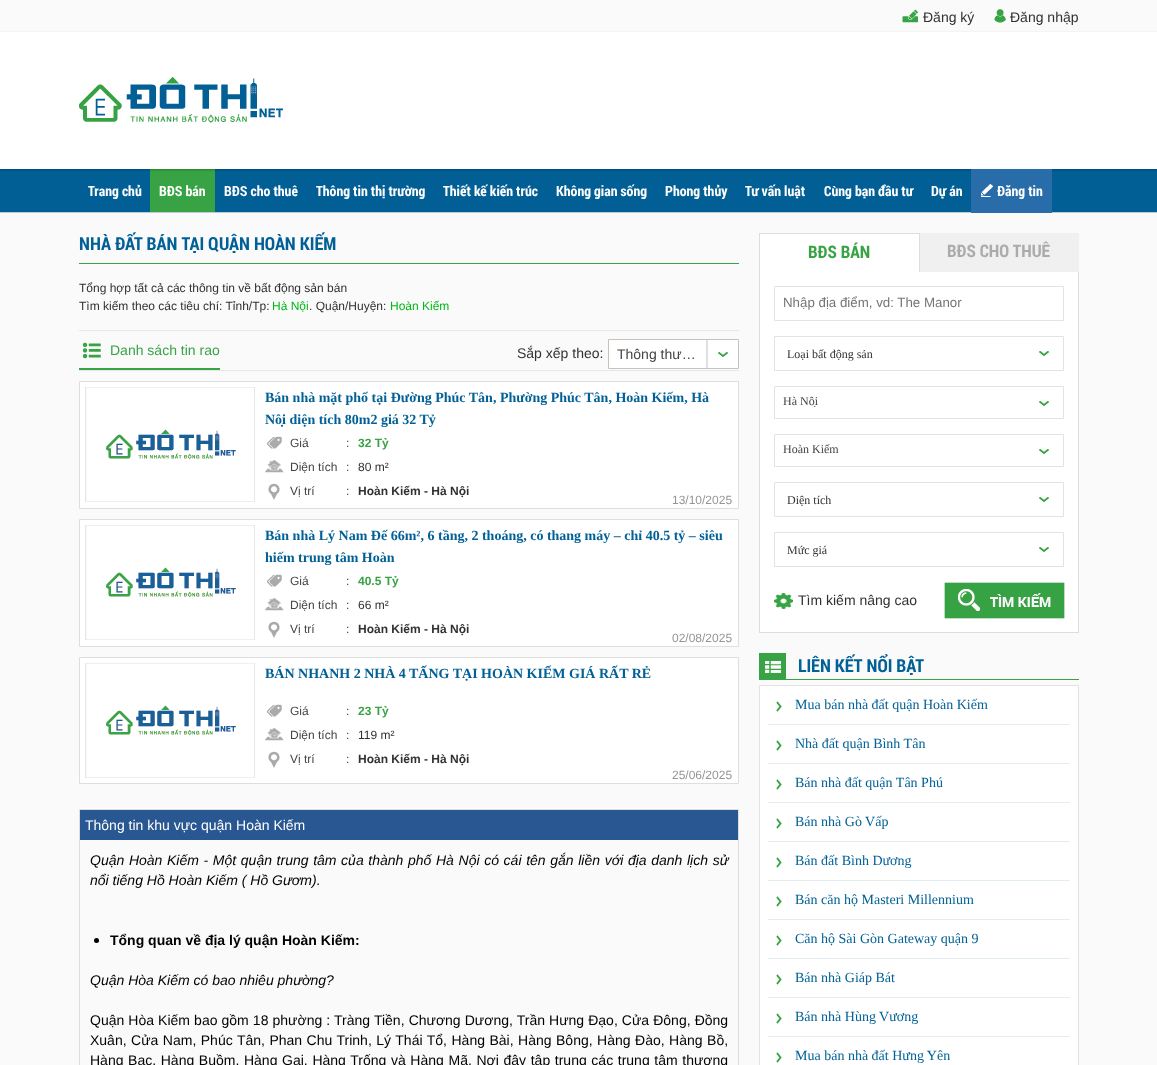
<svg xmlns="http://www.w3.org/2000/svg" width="1157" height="1065">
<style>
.a{font:14px Liberation Sans;fill:#313131}
.b{font:bold 14px Roboto Condensed;fill:#fff}
.c{font:bold 18px Roboto Condensed;fill:#016096}
.d{font:12px Liberation Sans;fill:#313131}
.e{font:12px Liberation Sans;fill:#02b818}
.f{font:14px Liberation Sans;fill:#37a344}
.g{font:14px Liberation Sans;fill:#444}
.h{font:bold 14px Liberation Serif;fill:#016096}
.i{font:12px Liberation Sans;fill:#444}
.j{font:bold 12px Liberation Sans;fill:#37a344}
.k{font:bold 12px Liberation Sans;fill:#313131}
.l{font:12px Liberation Sans;fill:#959595}
.m{font:14px Liberation Sans;fill:#fff}
.n{font:italic 14px Liberation Sans;fill:#000}
.o{font:bold 14px Liberation Sans;fill:#000}
.p{font:14px Liberation Sans;fill:#000}
.q{font:bold 17.25px Roboto Condensed;fill:#37a344}
.r{font:bold 17.25px Roboto Condensed;fill:#ababab}
.s{font:13.3px Liberation Sans;fill:#757575}
.t{font:12px Liberation Serif;fill:#313131}
.u{font:12px Liberation Serif;fill:#444}
.v{font:14px Liberation Serif;fill:#016096}
</style>
<rect width="100%" height="100%" fill="#fff"/>
<path fill="#fafafa" d="M0 0h1157v31H0z"/>
<path fill="#f4f4f4" d="M0 31h1157v1H0z"/>
<image href="1.png" x="902" y="9" width="16" height="14"/>
<image href="2.png" x="994" y="9" width="12" height="14"/>
<image href="3.png" x="79" y="77" width="204" height="46"/>
<image href="4.png" x="0" y="169" width="1157" height="43"/>
<path fill="#b9ccd3" d="M0 212h1157v1H0z"/>
<image href="5.png" x="150" y="169" width="65" height="43"/>
<path fill="#286ca9" d="M971 169h81v44H971z"/>
<image href="6.png" x="981" y="184" width="12" height="13"/>
<path fill="#fafafa" d="M0 213h1157v852H0z"/>
<path fill="#38a345" d="M79 263h660v1H79z"/>
<path fill="#e7e7e7" d="M79 330h660v1H79z"/>
<path fill="#e7e7e7" d="M79 370h660v1H79z"/>
<image href="7.png" x="83" y="342" width="18" height="17"/>
<path fill="#37a344" d="M79 368h141v2H79z"/>
<path fill="#fff" stroke="#cac1ba" d="M608.5 339.5h130v29H608.5z"/>
<image href="8.png" x="707" y="340" width="21" height="28"/>
<path fill="#dedede" d="M706 340h1v28H706z"/>
<path fill="#fff" stroke="#dedede" d="M79.5 381.5h659v127H79.5z"/>
<image href="9.png" x="85" y="387" width="170" height="115"/>
<image href="10.png" x="267" y="436" width="15" height="13"/>
<image href="11.png" x="265" y="460" width="19" height="13"/>
<image href="12.png" x="268" y="483" width="12" height="17"/>
<path fill="#fff" stroke="#dedede" d="M79.5 519.5h659v127H79.5z"/>
<image href="9.png" x="85" y="525" width="170" height="115"/>
<image href="10.png" x="267" y="574" width="15" height="13"/>
<image href="11.png" x="265" y="598" width="19" height="13"/>
<image href="12.png" x="268" y="621" width="12" height="17"/>
<path fill="#fff" stroke="#dedede" d="M79.5 657.5h659v126H79.5z"/>
<image href="9.png" x="85" y="663" width="170" height="115"/>
<image href="10.png" x="267" y="704" width="15" height="13"/>
<image href="11.png" x="265" y="728" width="19" height="13"/>
<image href="12.png" x="268" y="751" width="12" height="17"/>
<path fill="none" stroke="#dedede" d="M79.5 809.5h659v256H79.5z"/>
<path fill="#285791" d="M80 810h658v30H80z"/>
<circle fill="#000" cx="96.5" cy="940.5" r="2.5"/>
<path fill="#fff" d="M760 234h159v38H760z"/>
<path fill="#ddd" d="M759 233h161v1H759z"/>
<path fill="#ddd" d="M919 233h1v39H919z"/>
<path fill="#ddd" d="M759 233h1v39H759z"/>
<path fill="#f0f0f0" d="M920 233h159v39H920z"/>
<path fill="#aeaeae" filter="blur(0.5px)" d="M760 274h318v359H760z"/>
<path fill="#fff" d="M760 272h318v360H760z"/>
<path fill="#ddd" d="M1078 272h1v361H1078z"/>
<path fill="#ddd" d="M759 632h320v1H759z"/>
<path fill="#ddd" d="M759 272h1v361H759z"/>
<path fill="none" stroke="#e3e3e3" d="M774.5 286.5h289v34H774.5z"/>
<image href="13.png" x="1039" y="351" width="10" height="5"/>
<path fill="none" stroke="#e3e3e3" d="M774.5 336.5h289v34H774.5z"/>
<path fill="none" stroke="#e3e3e3" d="M774.5 386.5h289v32H774.5z"/>
<image href="13.png" x="1039" y="401" width="10" height="5"/>
<path fill="none" stroke="#e3e3e3" d="M774.5 434.5h289v32H774.5z"/>
<image href="13.png" x="1039" y="449" width="10" height="5"/>
<image href="13.png" x="1039" y="497" width="10" height="5"/>
<path fill="none" stroke="#e3e3e3" d="M774.5 482.5h289v34H774.5z"/>
<image href="13.png" x="1039" y="547" width="10" height="5"/>
<path fill="none" stroke="#e3e3e3" d="M774.5 532.5h289v34H774.5z"/>
<image href="14.png" x="774" y="593" width="19" height="16"/>
<image href="15.png" x="944" y="582" width="121" height="37"/>
<path fill="#37a344" d="M759 679h320v1H759z"/>
<path fill="#37a344" d="M759 653h27v26H759z"/>
<image href="16.png" x="765" y="661" width="16" height="12"/>
<path fill="#fff" stroke="#e3e3e3" d="M759.5 685.5h319v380H759.5z"/>
<image href="17.png" x="776" y="701" width="6" height="11"/>
<path fill="#e3eef2" d="M768 724h302v1H768z"/>
<image href="17.png" x="776" y="740" width="6" height="11"/>
<path fill="#e3eef2" d="M768 763h302v1H768z"/>
<image href="17.png" x="776" y="779" width="6" height="11"/>
<path fill="#e3eef2" d="M768 802h302v1H768z"/>
<image href="17.png" x="776" y="818" width="6" height="11"/>
<path fill="#e3eef2" d="M768 841h302v1H768z"/>
<image href="17.png" x="776" y="857" width="6" height="11"/>
<path fill="#e3eef2" d="M768 880h302v1H768z"/>
<image href="17.png" x="776" y="896" width="6" height="11"/>
<path fill="#e3eef2" d="M768 919h302v1H768z"/>
<image href="17.png" x="776" y="935" width="6" height="11"/>
<path fill="#e3eef2" d="M768 958h302v1H768z"/>
<image href="17.png" x="776" y="974" width="6" height="11"/>
<path fill="#e3eef2" d="M768 997h302v1H768z"/>
<image href="17.png" x="776" y="1013" width="6" height="11"/>
<path fill="#e3eef2" d="M768 1036h302v1H768z"/>
<image href="17.png" x="776" y="1052" width="6" height="11"/>
<text class="a" x="923" y="22">Đăng ký</text>
<text class="a" x="1010" y="22">Đăng nhập</text>
<text class="b" x="88" y="196">Trang chủ</text>
<text class="b" x="159" y="196">BĐS bán</text>
<text class="b" x="224" y="196">BĐS cho thuê</text>
<text class="b" x="316" y="196">Thông tin thị trường</text>
<text class="b" x="443" y="196">Thiết kế kiến trúc</text>
<text class="b" x="556" y="196">Không gian sống</text>
<text class="b" x="665" y="196">Phong thủy</text>
<text class="b" x="745" y="196">Tư vấn luật</text>
<text class="b" x="824" y="196">Cùng bạn đầu tư</text>
<text class="b" x="931" y="196">Dự án</text>
<text class="b" x="997" y="196">Đăng tin</text>
<text class="c" x="79" y="250">NHÀ ĐẤT BÁN TẠI QUẬN HOÀN KIẾM</text>
<text class="d" x="79" y="292">Tổng hợp tất cả các thông tin về bất động sản bán</text>
<text class="d" x="79" y="310">Tìm kiếm theo các tiêu chí: Tỉnh/Tp:</text>
<text class="e" x="272" y="310">Hà Nội</text>
<text class="d" x="309" y="310">. Quận/Huyện:</text>
<text class="e" x="390" y="310">Hoàn Kiếm</text>
<text class="f" x="110" y="355">Danh sách tin rao</text>
<text class="a" x="517" y="358">Sắp xếp theo:</text>
<text class="g" x="617" y="359">Thông thư…</text>
<text class="h" x="265" y="402">Bán nhà mặt phố tại Đường Phúc Tân, Phường Phúc Tân, Hoàn Kiếm, Hà</text>
<text class="h" x="265" y="424">Nội diện tích 80m2 giá 32 Tỷ</text>
<text class="i" x="290" y="447">Giá</text>
<text class="i" x="346" y="447">:</text>
<text class="j" x="358" y="447">32 Tỷ</text>
<text class="i" x="290" y="471">Diện tích</text>
<text class="i" x="346" y="471">:</text>
<text class="d" x="358" y="471">80 m²</text>
<text class="i" x="290" y="495">Vị trí</text>
<text class="i" x="346" y="495">:</text>
<text class="k" x="358" y="495">Hoàn Kiếm - Hà Nội</text>
<text class="l" x="672" y="504">13/10/2025</text>
<text class="h" x="265" y="540">Bán nhà Lý Nam Đế 66m², 6 tầng, 2 thoáng, có thang máy – chỉ 40.5 tỷ – siêu</text>
<text class="h" x="265" y="562">hiếm trung tâm Hoàn</text>
<text class="i" x="290" y="585">Giá</text>
<text class="i" x="346" y="585">:</text>
<text class="j" x="358" y="585">40.5 Tỷ</text>
<text class="i" x="290" y="609">Diện tích</text>
<text class="i" x="346" y="609">:</text>
<text class="d" x="358" y="609">66 m²</text>
<text class="i" x="290" y="633">Vị trí</text>
<text class="i" x="346" y="633">:</text>
<text class="k" x="358" y="633">Hoàn Kiếm - Hà Nội</text>
<text class="l" x="672" y="642">02/08/2025</text>
<text class="h" x="265" y="678">BÁN NHANH 2 NHÀ 4 TẤNG TẠI HOÀN KIẾM GIÁ RẤT RẺ</text>
<text class="i" x="290" y="715">Giá</text>
<text class="i" x="346" y="715">:</text>
<text class="j" x="358" y="715">23 Tỷ</text>
<text class="i" x="290" y="739">Diện tích</text>
<text class="i" x="346" y="739">:</text>
<text class="d" x="358" y="739">119 m²</text>
<text class="i" x="290" y="763">Vị trí</text>
<text class="i" x="346" y="763">:</text>
<text class="k" x="358" y="763">Hoàn Kiếm - Hà Nội</text>
<text class="l" x="672" y="779">25/06/2025</text>
<text class="m" x="85" y="830">Thông tin khu vực quận Hoàn Kiếm</text>
<text class="n" x="90" y="865" word-spacing="0.75">Quận Hoàn Kiếm - Một quận trung tâm của thành phố Hà Nội có cái tên gắn liền với địa danh lịch sử</text>
<text class="n" x="90" y="885">nổi tiếng Hồ Hoàn Kiếm ( Hồ Gươm).</text>
<text class="o" x="110" y="945">Tổng quan về địa lý quận Hoàn Kiếm:</text>
<text class="n" x="90" y="985">Quận Hòa Kiếm có bao nhiêu phường?</text>
<text class="p" x="90" y="1025" word-spacing="0.2">Quận Hòa Kiếm bao gồm 18 phường : Tràng Tiền, Chương Dương, Trần Hưng Đạo, Cửa Đông, Đồng</text>
<text class="p" x="90" y="1045" word-spacing="0.6">Xuân, Cửa Nam, Phúc Tân, Phan Chu Trinh, Lý Thái Tổ, Hàng Bài, Hàng Bông, Hàng Đào, Hàng Bồ,</text>
<text class="p" x="90" y="1065" word-spacing="0.75">Hàng Bạc, Hàng Buồm, Hàng Gai, Hàng Trống và Hàng Mã. Nơi đây tập trung các trung tâm thương</text>
<text class="q" x="808" y="258">BĐS BÁN</text>
<text class="r" x="947" y="257">BĐS CHO THUÊ</text>
<text class="s" x="783" y="307">Nhập địa điểm, vd: The Manor</text>
<text class="t" x="787" y="358">Loại bất động sản</text>
<text class="u" x="783" y="405">Hà Nội</text>
<text class="u" x="783" y="453">Hoàn Kiếm</text>
<text class="t" x="787" y="504">Diện tích</text>
<text class="t" x="787" y="554">Mức giá</text>
<text class="a" x="798" y="605">Tìm kiếm nâng cao</text>
<text class="c" x="798" y="672">LIÊN KẾT NỔI BẬT</text>
<text class="v" x="795" y="709">Mua bán nhà đất quận Hoàn Kiếm</text>
<text class="v" x="795" y="748">Nhà đất quận Bình Tân</text>
<text class="v" x="795" y="787">Bán nhà đất quận Tân Phú</text>
<text class="v" x="795" y="826">Bán nhà Gò Vấp</text>
<text class="v" x="795" y="865">Bán đất Bình Dương</text>
<text class="v" x="795" y="904">Bán căn hộ Masteri Millennium</text>
<text class="v" x="795" y="943">Căn hộ Sài Gòn Gateway quận 9</text>
<text class="v" x="795" y="982">Bán nhà Giáp Bát</text>
<text class="v" x="795" y="1021">Bán nhà Hùng Vương</text>
<text class="v" x="795" y="1060">Mua bán nhà đất Hưng Yên</text>
</svg>
